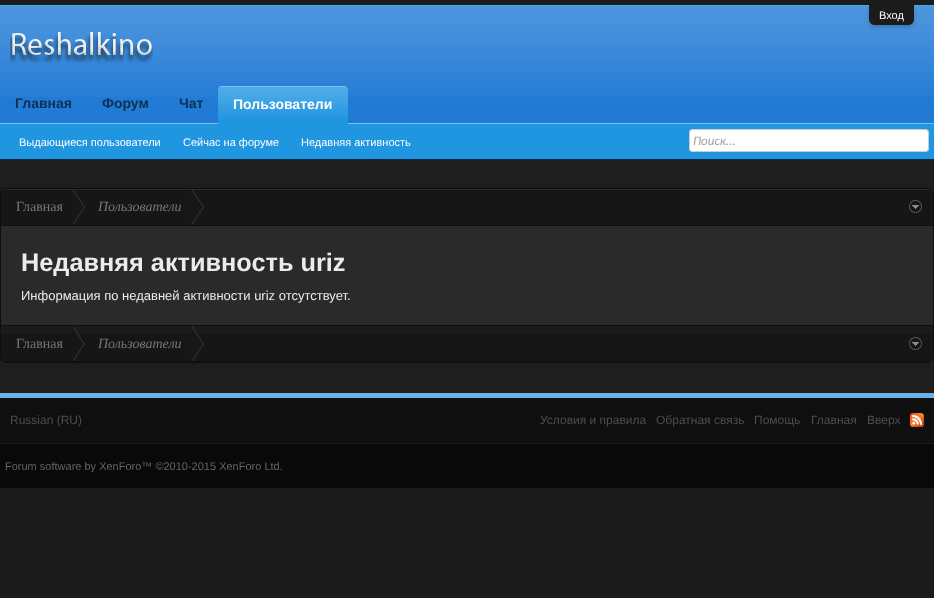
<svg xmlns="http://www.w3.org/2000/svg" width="934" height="598">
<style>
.a{font:11px Liberation Sans;fill:#fff}
.b{font:bold 14px Liberation Sans;fill:#0d3155}
.c{font:bold 14px Liberation Sans;fill:#fff}
.d{font:italic 13px Carlito;fill:#a0a0a0}
.e{font:14px Liberation Serif;fill:#777}
.f{font:italic 14px Liberation Serif;fill:#777}
.g{font:bold 25.3px Liberation Sans;fill:#ebebeb}
.h{font:13px Liberation Sans;fill:#ebebeb}
.i{font:12px Liberation Sans;fill:#4e4e4e}
.j{font:11px Liberation Sans;fill:#646464}
</style>
<rect width="100%" height="100%" fill="#1b1b1b"/>
<path fill="#1e1e1e" d="M0 160h934v233H0z"/>
<path fill="#3cb2e3" d="M0 5h934v1H0z"/>
<path fill="#217bd5" d="M0 6h934v117H0z"/>
<image href="1.png" x="0" y="6" width="934" height="91"/>
<rect fill="#00000033" filter="blur(2px)" x="869" y="7" width="45" height="20" rx="6"/>
<path fill="#1b1b1b" d="M869 5h45v14c0 3.5-2.5 6-6 6h-33c-3.5 0-6-2.5-6-6z"/>
<image href="2.png" x="10" y="32" width="143" height="31"/>
<path fill="#7cc1ec" d="M0 123h934v1H0z"/>
<path fill="#2096e1" d="M222 86h122c2 0 4 2 4 4v34h-130v-34c0-2 2-4 4-4z"/>
<image href="3.png" x="218" y="86" width="130" height="32"/>
<path fill="#2096e1" d="M0 124h934v35H0z"/>
<path fill="#032a46" d="M0 159h934v1H0z"/>
<rect fill="#fff" x="689" y="129" width="240" height="23" rx="4"/>
<rect fill="none" stroke="#00000033" x="689.5" y="129.5" width="239" height="22" rx="3.5"/>
<rect fill="#2a2a2a" stroke="#0f0f0f" x="0.5" y="188.5" width="933" height="174" rx="5.5"/>
<path fill="#161616" d="M7 189h920c3.5 0 6 2.5 6 6v31h-932v-31c0-3.5 2.5-6 6-6z"/>
<image href="4.png" x="4" y="189" width="926" height="1"/>
<path fill="#0f0f0f" d="M1 225h932v1H1z"/>
<path fill="#3a3a3a" d="M73 225v-36l12 18z"/>
<path fill="#171717" d="M72 225v-36l12 18z"/>
<path fill="#3a3a3a" d="M192 225v-36l12 18z"/>
<path fill="#171717" d="M191 225v-36l12 18z"/>
<image href="5.png" x="909" y="200" width="13" height="13"/>
<path fill="#161616" d="M1 325h932v31c0 3.5-2.5 6-6 6h-920c-3.5 0-6-2.5-6-6z"/>
<path fill="#1b1b1b" d="M1 326h932v8H1z"/>
<path fill="#0f0f0f" d="M4 361h926v1H4z"/>
<path fill="#0f0f0f" d="M1 325h932v1H1z"/>
<path fill="#3a3a3a" d="M73.5 361l11.5-17l-12-18v35z"/>
<path fill="#171717" d="M72.5 361l11.5-17l-12-18v35z"/>
<path fill="#3a3a3a" d="M192.5 361l11.5-17l-12-18v35z"/>
<path fill="#171717" d="M191.5 361l11.5-17l-12-18v35z"/>
<image href="5.png" x="909" y="337" width="13" height="13"/>
<path fill="#090909" d="M0 444h934v44H0z"/>
<path fill="#0f0f0f" d="M0 398h934v45H0z"/>
<path fill="#6cb2e4" d="M0 393h934v5H0z"/>
<image href="6.png" x="910" y="413" width="14" height="14"/>
<text class="a" x="879" y="19">Вход</text>
<text class="b" x="15" y="108">Главная</text>
<text class="b" x="102" y="108">Форум</text>
<text class="b" x="179" y="108">Чат</text>
<text class="c" x="233" y="109">Пользователи</text>
<text class="a" x="19" y="146">Выдающиеся пользователи</text>
<text class="a" x="183" y="146">Сейчас на форуме</text>
<text class="a" x="301" y="146">Недавняя активность</text>
<text class="d" x="693" y="145">Поиск...</text>
<text class="e" x="16" y="211">Главная</text>
<text class="f" x="98" y="211">Пользователи</text>
<text class="g" x="21" y="271">Недавняя активность uriz</text>
<text class="h" x="21" y="300">Информация по недавней активности uriz отсутствует.</text>
<text class="e" x="16" y="348">Главная</text>
<text class="f" x="98" y="348">Пользователи</text>
<text class="i" x="10" y="424">Russian (RU)</text>
<text class="i" x="540" y="424">Условия и правила</text>
<text class="i" x="656" y="424">Обратная связь</text>
<text class="i" x="754" y="424">Помощь</text>
<text class="i" x="811" y="424">Главная</text>
<text class="i" x="867" y="424">Вверх</text>
<text class="j" x="5" y="470">Forum software by XenForo™ ©2010-2015 XenForo Ltd.</text>
</svg>
